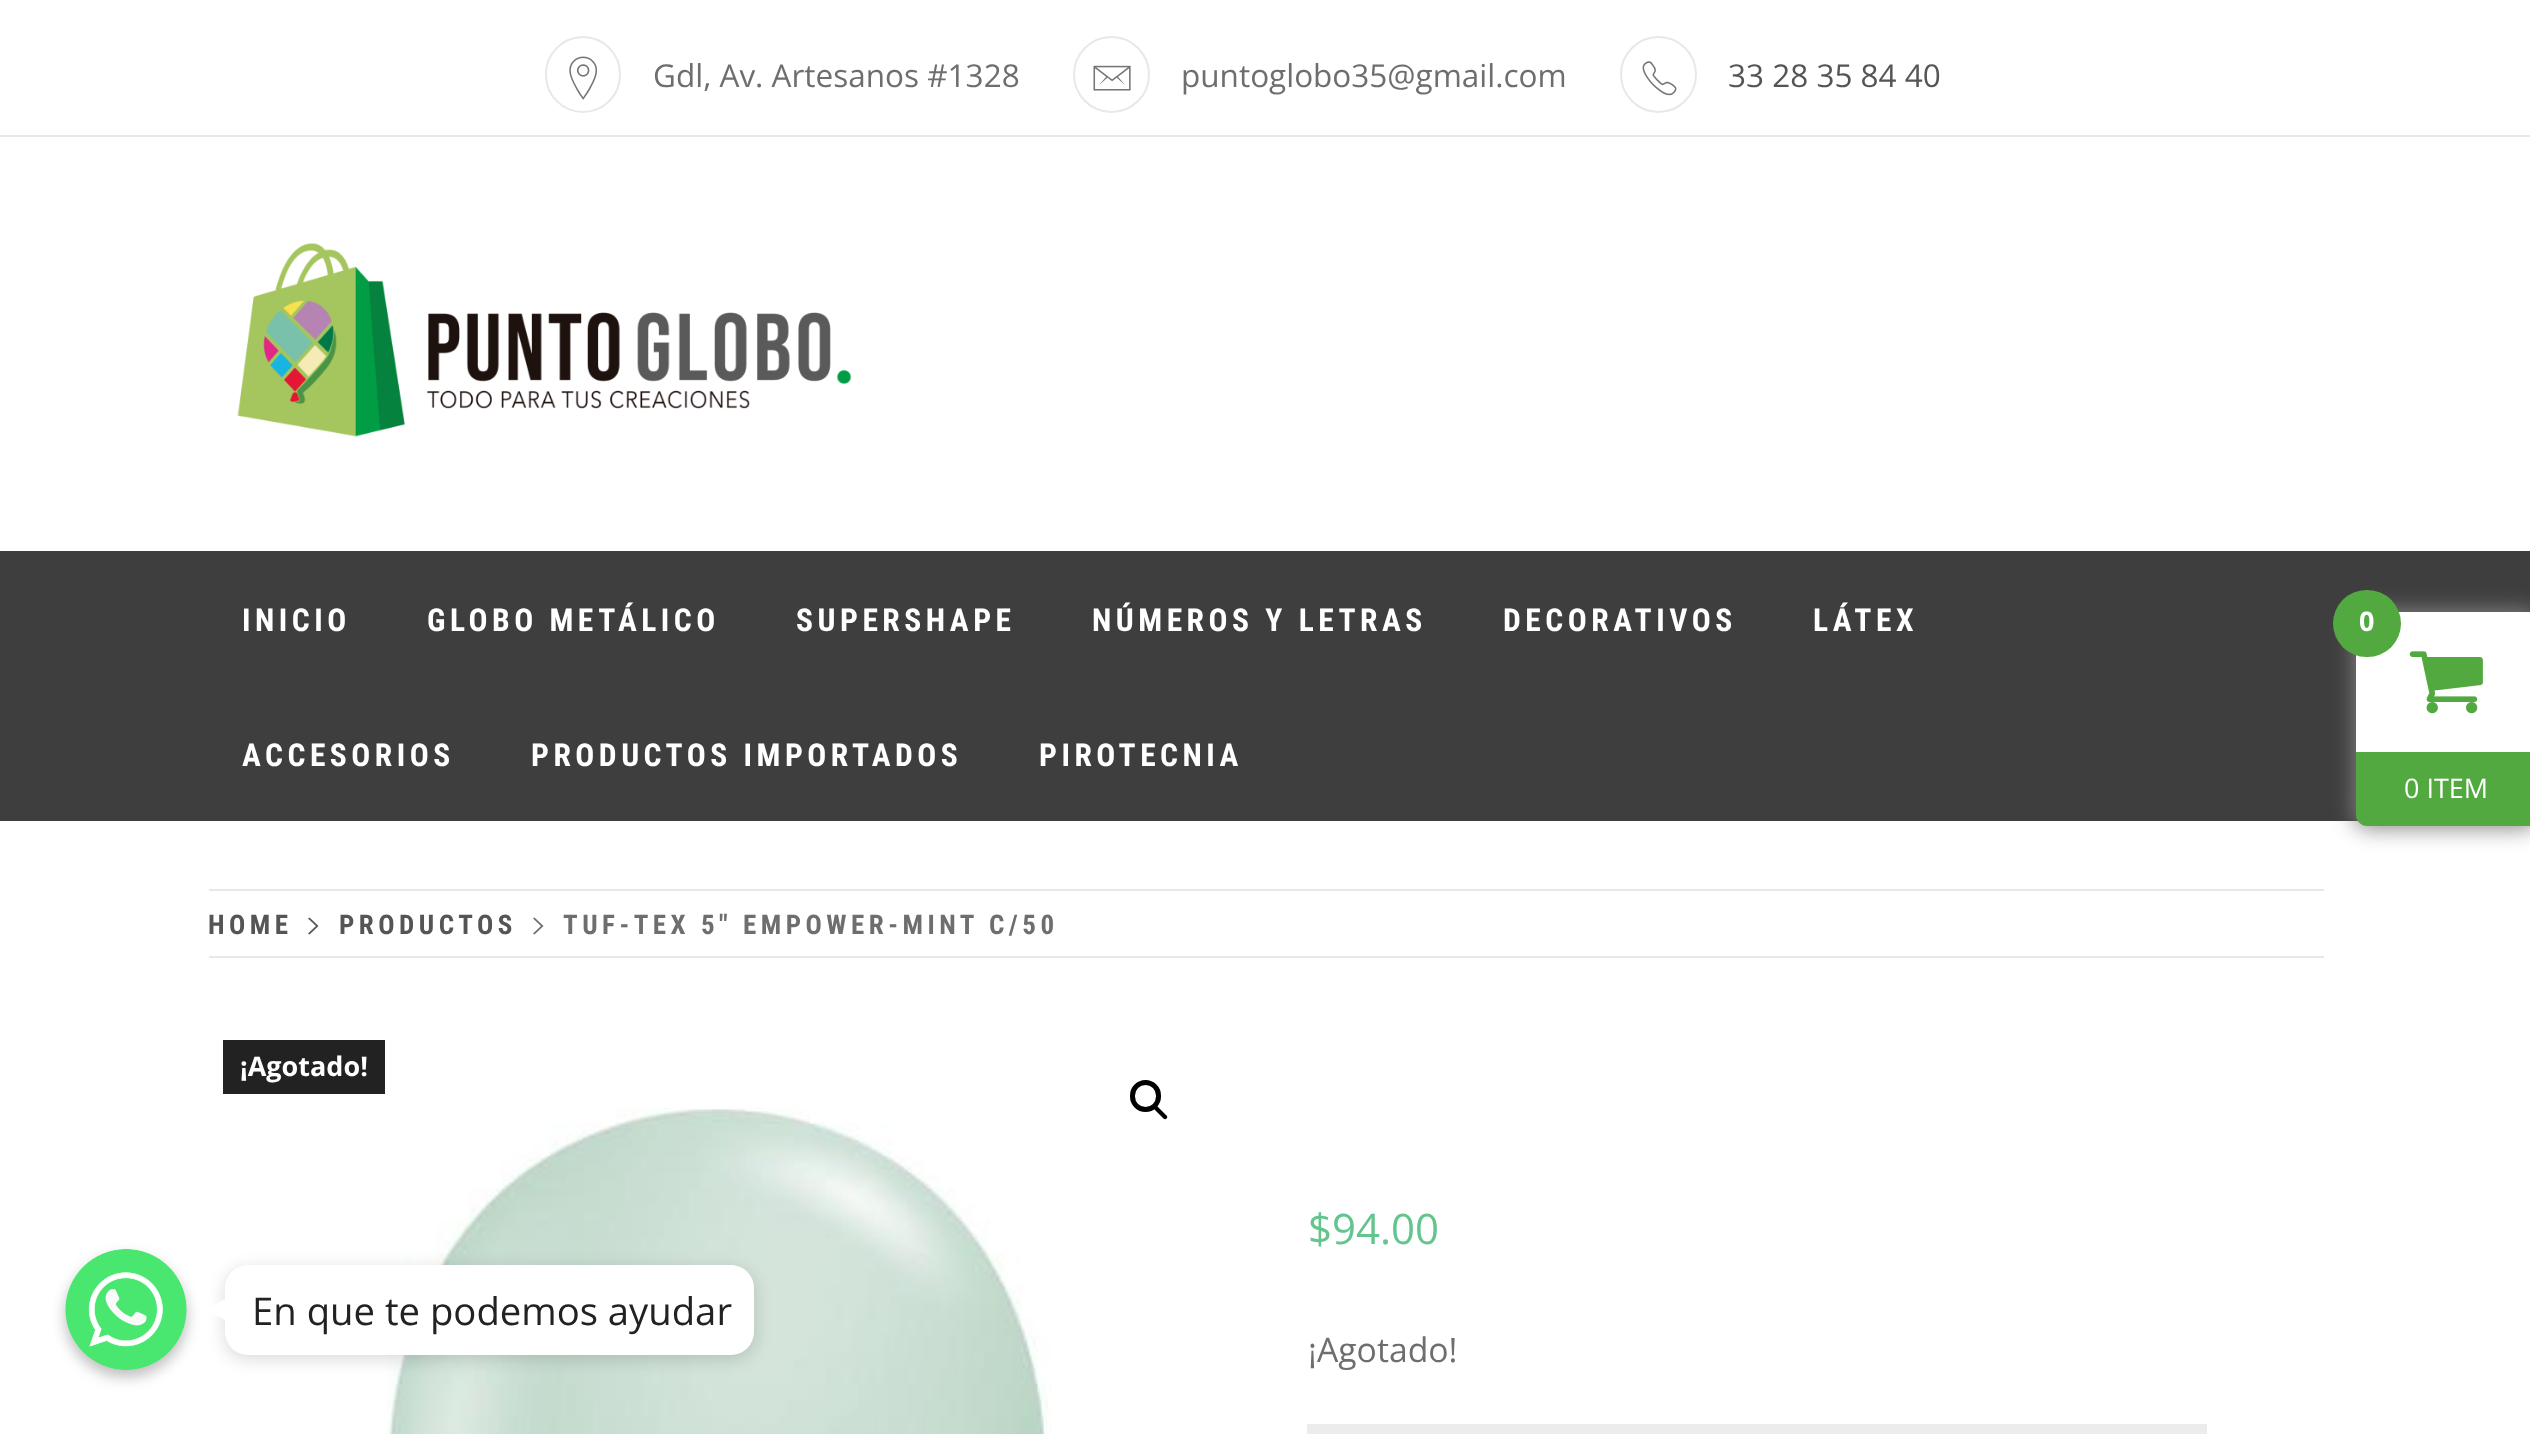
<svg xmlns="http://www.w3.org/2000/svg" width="2530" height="1434">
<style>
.a{font:31.5px Open Sans;fill:#6e6e6e}
.b{font:31.5px Open Sans;fill:#555}
.c{font:bold 31.5px Roboto Condensed;letter-spacing:4.5px;fill:#fff}
.d{font:bold 27px Roboto Condensed;letter-spacing:4.5px;fill:#555}
.e{font:bold 27px Roboto Condensed;letter-spacing:4.5px;fill:#6e6e6e}
.f{font:bold 27px Open Sans;fill:#fff}
.g{font:42px Open Sans;fill:#63c58d}
.h{font:33.75px Open Sans;fill:#6e6e6e}
.i{font:27px Open Sans;fill:#fff}
.j{font:38.25px Open Sans;fill:#222}
</style>
<rect width="100%" height="100%" fill="#fff"/>
<path fill="#e8e8e8" d="M0 135h2530v2H0z"/>
<rect fill="none" stroke="#e8e8e8" stroke-width="2" x="546" y="37" width="74" height="75" rx="37"/>
<image href="1.png" x="569" y="56" width="29" height="44"/>
<circle fill="none" stroke="#e8e8e8" stroke-width="2" cx="1111.5" cy="74.5" r="37.5"/>
<image href="2.png" x="1093" y="65" width="38" height="26"/>
<circle fill="none" stroke="#e8e8e8" stroke-width="2" cx="1658.5" cy="74.5" r="37.5"/>
<image href="3.png" x="1642" y="61" width="35" height="35"/>
<image href="4.png" x="237" y="243" width="615" height="194"/>
<path fill="#3e3e3e" d="M0 551h2530v270H0z"/>
<path fill="#e8e8e8" d="M209 889h2115v2H209z"/>
<path fill="#e8e8e8" d="M209 956h2115v2H209z"/>
<path fill="#555" d="M308 918.5l1.5-1l9 8.5l-9 8.5l-1.5-1l8-7.5z"/>
<path fill="#6e6e6e" d="M533 918.5l1.5-1l9 8.5l-9 8.5l-1.5-1l8-7.5z"/>
<path fill="#222" d="M223 1040h162v54H223z"/>
<rect fill="none" stroke="#000" stroke-width="5" x="1132.5" y="1082.5" width="26" height="27" rx="13"/>
<path fill="#000" d="M1154 1106c1-1 2-1 3 0l9.5 9.5c1 1 1 2.5 0 3c-.5 1-2 1-3 0l-9.5-9.5c-1-.5-1-2 0-3z"/>
<image href="5.png" x="387" y="1107" width="664" height="327"/>
<path fill="#ececec" d="M1307 1424h900v10H1307z"/>
<rect fill="#858080" filter="blur(11px)" x="2354" y="610" width="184" height="218" rx="14"/>
<path fill="#fff" d="M2356 612h174v140H2356z"/>
<rect fill="#52a93f" x="2333" y="590" width="68" height="67" rx="33.5"/>
<image href="6.png" x="2409" y="651" width="74" height="63"/>
<path fill="#52a93f" d="M2356 752h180v74h-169c-6 0-11-5-11-11z"/>
<rect fill="#00000040" filter="blur(7px)" x="65" y="1256" width="122" height="121" rx="60.5"/>
<image href="7.png" x="65" y="1249" width="122" height="121"/>
<rect fill="#00000026" filter="blur(8.5px)" x="225" y="1269" width="529" height="90" rx="23"/>
<rect fill="#fff" x="225" y="1265" width="529" height="90" rx="23"/>
<path fill="#fff" d="M227 1298v23l-22-11.5z"/>
<text class="a" x="653" y="87">Gdl, Av. Artesanos #1328</text>
<text class="a" x="1181" y="87">puntoglobo35@gmail.com</text>
<text class="b" x="1728" y="87">33 28 35 84 40</text>
<text class="c" x="242" y="631">INICIO</text>
<text class="c" x="427" y="631">GLOBO METÁLICO</text>
<text class="c" x="796" y="631">SUPERSHAPE</text>
<text class="c" x="1092" y="631">NÚMEROS Y LETRAS</text>
<text class="c" x="1503" y="631">DECORATIVOS</text>
<text class="c" x="1813" y="631">LÁTEX</text>
<text class="c" x="242" y="766">ACCESORIOS</text>
<text class="c" x="531" y="766">PRODUCTOS IMPORTADOS</text>
<text class="c" x="1039" y="766">PIROTECNIA</text>
<text class="d" x="208" y="934">HOME</text>
<text class="d" x="339" y="934">PRODUCTOS</text>
<text class="e" x="563" y="934">TUF-TEX 5″ EMPOWER-MINT C/50</text>
<text class="f" x="240" y="1076">¡Agotado!</text>
<text class="g" x="1308" y="1244">$94.00</text>
<text class="h" x="1308" y="1362">¡Agotado!</text>
<text class="f" x="2359" y="631">0</text>
<text class="i" x="2404" y="798">0 ITEM</text>
<text class="j" x="252" y="1325">En que te podemos ayudar</text>
</svg>
